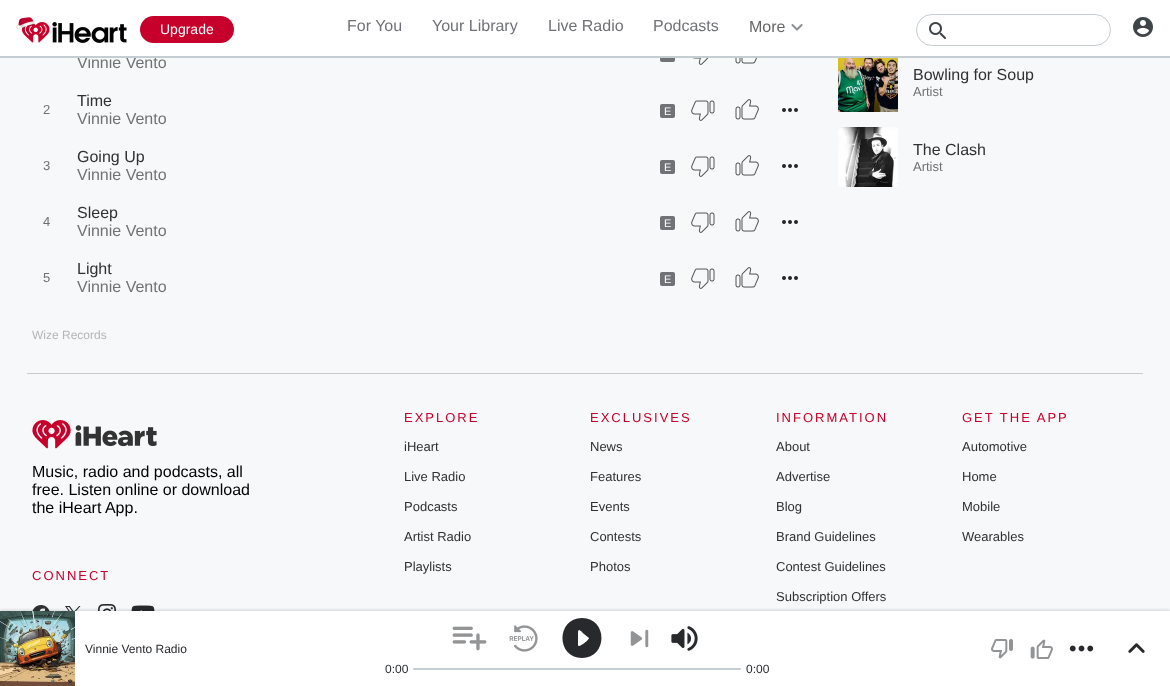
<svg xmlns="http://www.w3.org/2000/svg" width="1170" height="686">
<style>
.a{font:14px Liberation Sans;fill:#fff}
.b{font:16px Liberation Sans;fill:#717277}
.c{font:16px Liberation Sans;fill:#666}
.d{font:13px Liberation Sans;fill:#717277}
.e{font:16px Liberation Sans;fill:#2f3133}
.f{font:11px Liberation Sans;fill:#fff}
.g{font:12px Liberation Sans;fill:#b4b5b8}
.h{font:16px Liberation Sans;fill:#000}
.i{font:13px Liberation Sans;letter-spacing:2px;fill:#c6002b}
.j{font:13px Liberation Sans;fill:#2f3133}
.k{font:12px Liberation Sans;fill:#27292d}
</style>
<rect width="100%" height="100%" fill="#f6f8f9"/>
<rect fill="#717277" x="660" y="48" width="15" height="14" rx="2"/>
<path fill="#fff" d="M0 0h1170v56H0z"/>
<image href="1.png" x="16" y="17" width="111" height="26"/>
<rect fill="#c6002b" x="140" y="16" width="94" height="27" rx="13.5"/>
<image href="2.png" x="791" y="24" width="12" height="7"/>
<rect fill="none" stroke="#c5cdd2" x="916.5" y="14.5" width="194" height="31" rx="15.5"/>
<image href="3.png" x="929" y="22" width="17" height="17"/>
<image href="4.png" x="1133" y="17" width="20" height="20"/>
<image href="5.png" x="693" y="58" width="16" height="7"/>
<image href="6.png" x="735" y="58" width="22" height="6"/>
<rect fill="#717277" x="660" y="104" width="15" height="14" rx="2"/>
<image href="7.png" x="691" y="100" width="24" height="21"/>
<image href="8.png" x="735" y="99" width="24" height="21"/>
<image href="9.png" x="782" y="108" width="16" height="4"/>
<rect fill="#717277" x="660" y="160" width="15" height="14" rx="2"/>
<image href="7.png" x="691" y="156" width="24" height="21"/>
<image href="8.png" x="735" y="155" width="24" height="21"/>
<image href="9.png" x="782" y="164" width="16" height="4"/>
<rect fill="#717277" x="660" y="216" width="15" height="14" rx="2"/>
<image href="7.png" x="691" y="212" width="24" height="21"/>
<image href="8.png" x="735" y="211" width="24" height="21"/>
<image href="9.png" x="782" y="220" width="16" height="4"/>
<rect fill="#717277" x="660" y="272" width="15" height="14" rx="2"/>
<image href="7.png" x="691" y="268" width="24" height="21"/>
<image href="8.png" x="735" y="267" width="24" height="21"/>
<image href="9.png" x="782" y="276" width="16" height="4"/>
<image href="10.png" x="838" y="58" width="60" height="54"/>
<image href="11.png" x="838" y="127" width="60" height="60"/>
<path fill="#c5cdd2" d="M27 373h1116v1H27z"/>
<image href="12.png" x="32" y="420" width="125" height="29"/>
<image href="13.png" x="32" y="605" width="18" height="6"/>
<image href="14.png" x="65" y="606" width="16" height="5"/>
<image href="15.png" x="98" y="604" width="18" height="7"/>
<image href="16.png" x="131" y="605" width="24" height="6"/>
<path fill="#00000026" filter="blur(1.5px)" d="M0 610h1170v75H0z"/>
<path fill="#fff" d="M75 611h1095v75H75z"/>
<image href="17.png" x="0" y="611" width="75" height="75"/>
<image href="18.png" x="991" y="639" width="22" height="20"/>
<image href="19.png" x="1030" y="639" width="23" height="20"/>
<image href="20.png" x="1069" y="645" width="25" height="7"/>
<image href="21.png" x="1128" y="643" width="17" height="10"/>
<image href="22.png" x="452" y="626" width="35" height="25"/>
<image href="23.png" x="509" y="625" width="29" height="27"/>
<path fill="#27292d" d="M582 618c-26 0-26 40 0 40c26 0 26-40 0-40zm-4 27v-12c0-6 3-2 6 1l5 4c1 1-11 11-11 7z"/>
<image href="24.png" x="630" y="629" width="19" height="19"/>
<image href="25.png" x="671" y="626" width="27" height="25"/>
<rect fill="#c5cdd2" x="413" y="668" width="328" height="2" rx="1"/>
<text class="a" x="160" y="34">Upgrade</text>
<text class="b" x="347" y="31">For You</text>
<text class="b" x="432" y="31">Your Library</text>
<text class="b" x="548" y="31">Live Radio</text>
<text class="b" x="653" y="31">Podcasts</text>
<text class="c" x="749" y="32">More</text>
<text class="b" x="77" y="68">Vinnie Vento</text>
<path fill="#c5cdd2" d="M0 56h1170v2H0z"/>
<text class="d" x="43" y="114">2</text>
<text class="e" x="77" y="106">Time</text>
<text class="b" x="77" y="124">Vinnie Vento</text>
<text class="f" x="664" y="115">E</text>
<text class="d" x="43" y="170">3</text>
<text class="e" x="77" y="162">Going Up</text>
<text class="b" x="77" y="180">Vinnie Vento</text>
<text class="f" x="664" y="171">E</text>
<text class="d" x="43" y="226">4</text>
<text class="e" x="77" y="218">Sleep</text>
<text class="b" x="77" y="236">Vinnie Vento</text>
<text class="f" x="664" y="227">E</text>
<text class="d" x="43" y="282">5</text>
<text class="e" x="77" y="274">Light</text>
<text class="b" x="77" y="292">Vinnie Vento</text>
<text class="f" x="664" y="283">E</text>
<text class="g" x="32" y="339">Wize Records</text>
<text class="e" x="913" y="80">Bowling for Soup</text>
<text class="d" x="913" y="96">Artist</text>
<text class="e" x="913" y="155">The Clash</text>
<text class="d" x="913" y="171">Artist</text>
<text class="h" x="32" y="477">Music, radio and podcasts, all</text>
<text class="h" x="32" y="495">free. Listen online or download</text>
<text class="h" x="32" y="513">the iHeart App.</text>
<text class="i" x="32" y="580">CONNECT</text>
<text class="i" x="404" y="422">EXPLORE</text>
<text class="j" x="404" y="451">iHeart</text>
<text class="j" x="404" y="481">Live Radio</text>
<text class="j" x="404" y="511">Podcasts</text>
<text class="j" x="404" y="541">Artist Radio</text>
<text class="j" x="404" y="571">Playlists</text>
<text class="i" x="590" y="422">EXCLUSIVES</text>
<text class="j" x="590" y="451">News</text>
<text class="j" x="590" y="481">Features</text>
<text class="j" x="590" y="511">Events</text>
<text class="j" x="590" y="541">Contests</text>
<text class="j" x="590" y="571">Photos</text>
<text class="i" x="776" y="422">INFORMATION</text>
<text class="j" x="776" y="451">About</text>
<text class="j" x="776" y="481">Advertise</text>
<text class="j" x="776" y="511">Blog</text>
<text class="j" x="776" y="541">Brand Guidelines</text>
<text class="j" x="776" y="571">Contest Guidelines</text>
<text class="j" x="776" y="601">Subscription Offers</text>
<text class="i" x="962" y="422">GET THE APP</text>
<text class="j" x="962" y="451">Automotive</text>
<text class="j" x="962" y="481">Home</text>
<text class="j" x="962" y="511">Mobile</text>
<text class="j" x="962" y="541">Wearables</text>
<text class="k" x="85" y="653">Vinnie Vento Radio</text>
<text class="k" x="385" y="673">0:00</text>
<text class="k" x="746" y="673">0:00</text>
</svg>
